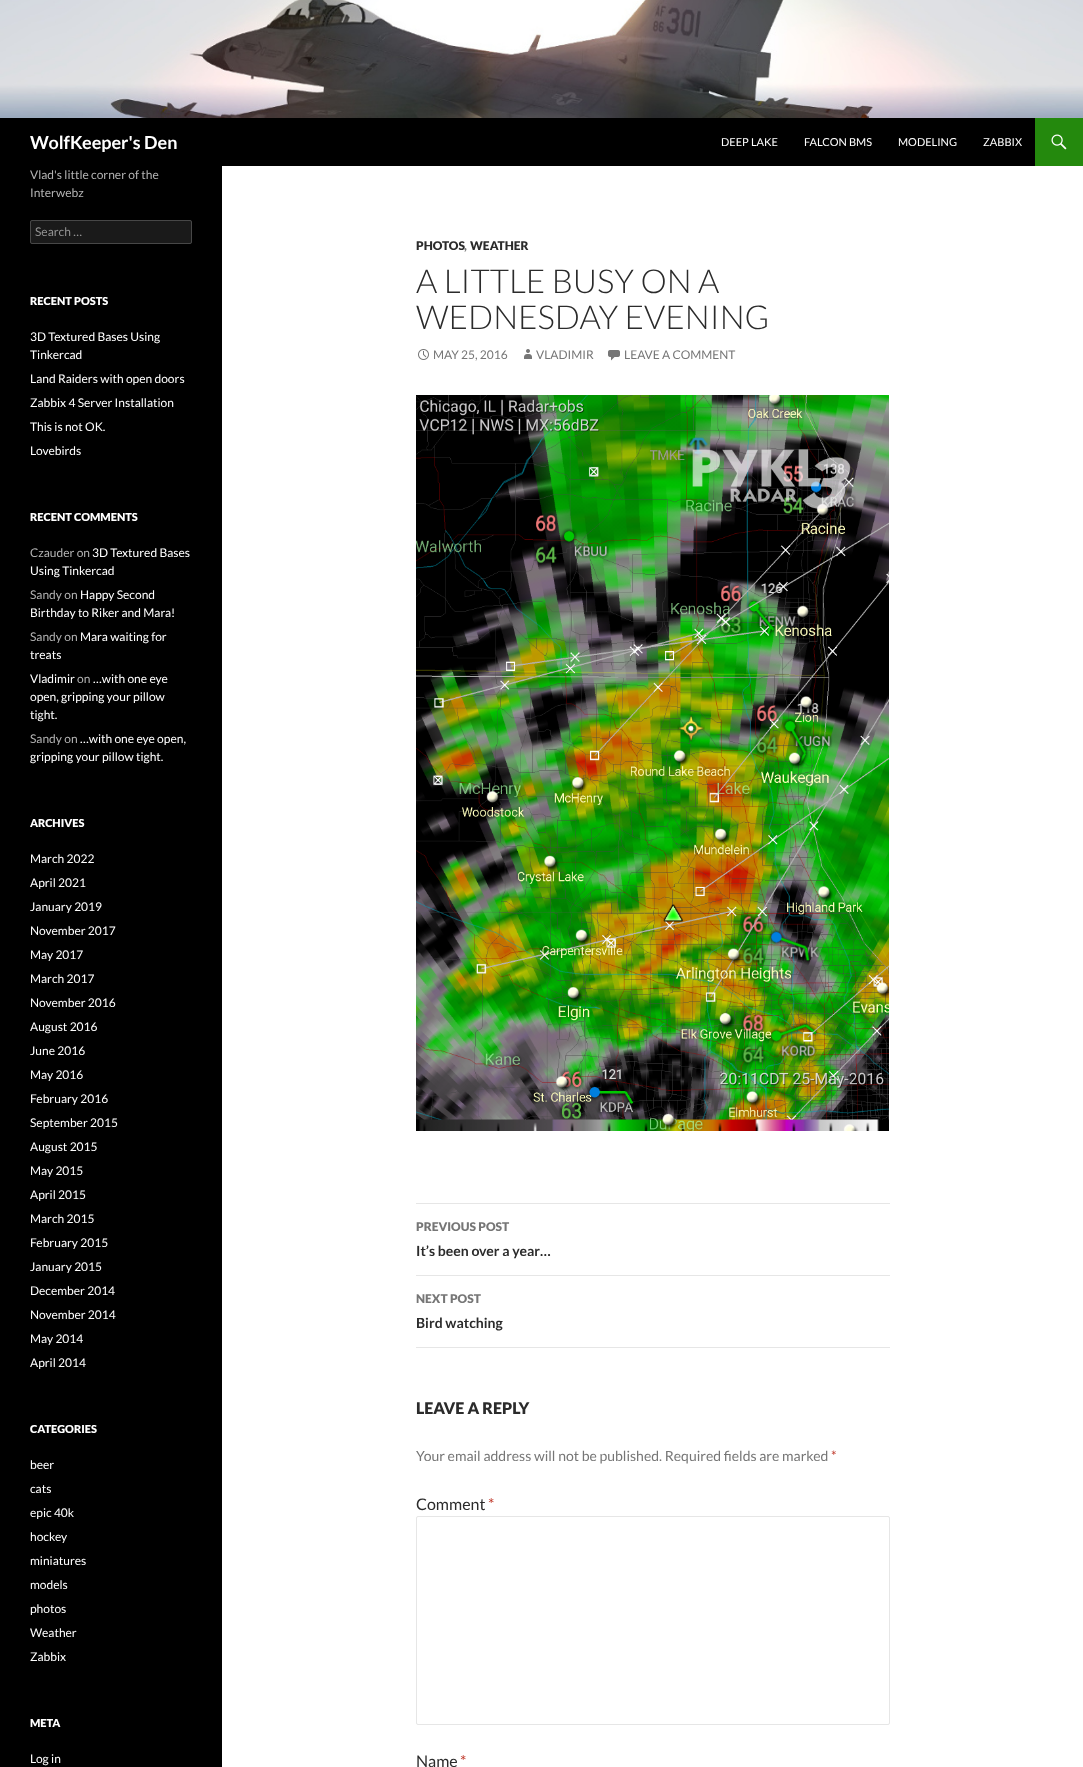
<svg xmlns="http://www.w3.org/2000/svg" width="1083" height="1767">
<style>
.a{font:bold 18px Lato;fill:#fff}
.b{font:11px Lato;fill:#fff}
.c{font:12px Lato;fill:#b3b3b3}
.d{font:12px Lato;fill:#939393}
.e{font:900 11px Lato;fill:#fff}
.f{font:12px Lato;fill:#fff}
.g{font:900 12px Lato;fill:#2b2b2b}
.h{font:900 12px Lato;fill:#767676}
.i{font:300 33px Lato;fill:#2b2b2b}
.j{font:12px Lato;fill:#767676}
.k{font:bold 14px Lato;fill:#2b2b2b}
.l{font:900 16px Lato;fill:#2b2b2b}
.m{font:14px Lato;fill:#767676}
.n{font:14px Lato;fill:#c0392b}
.o{font:16px Lato;fill:#2b2b2b}
.p{font:16px Lato;fill:#c0392b}
</style>
<rect width="100%" height="100%" fill="#fff"/>
<image href="1.png" x="0" y="0" width="1083" height="118"/>
<path fill="#000" d="M0 118h1035v48H0z"/>
<path fill="#24890d" d="M1035 118h48v48H1035z"/>
<image href="2.png" x="1051" y="134" width="16" height="16"/>
<path fill="#000" d="M0 166h222v1601H0z"/>
<rect fill="#1a1a1a" x="30" y="220" width="162" height="24" rx="2"/>
<rect fill="none" stroke="#ffffff33" x="30.5" y="220.5" width="161" height="23" rx="1.5"/>
<image href="3.png" x="418" y="349" width="11" height="11"/>
<image href="4.png" x="524" y="349" width="8" height="10"/>
<image href="5.png" x="608" y="350" width="12" height="11"/>
<image href="6.png" x="416" y="395" width="473" height="736"/>
<path fill="#e6e6e6" d="M416 1203h474v1H416z"/>
<path fill="#e6e6e6" d="M416 1275h474v1H416z"/>
<path fill="#e6e6e6" d="M416 1347h474v1H416z"/>
<rect fill="none" stroke="#e6e6e6" x="416.5" y="1516.5" width="473" height="208" rx="1.5"/>
<text class="a" x="30" y="149">WolfKeeper's Den</text>
<text class="b" x="721" y="146">DEEP LAKE</text>
<text class="b" x="804" y="146">FALCON BMS</text>
<text class="b" x="898" y="146">MODELING</text>
<text class="b" x="983" y="146">ZABBIX</text>
<text class="c" x="30" y="179">Vlad's little corner of the</text>
<text class="c" x="30" y="197">Interwebz</text>
<text class="d" x="35" y="236">Search …</text>
<text class="e" x="30" y="305">RECENT POSTS</text>
<text class="f" x="30" y="341">3D Textured Bases Using</text>
<text class="f" x="30" y="359">Tinkercad</text>
<text class="f" x="30" y="383">Land Raiders with open doors</text>
<text class="f" x="30" y="407">Zabbix 4 Server Installation</text>
<text class="f" x="30" y="431">This is not OK.</text>
<text class="f" x="30" y="455">Lovebirds</text>
<text class="e" x="30" y="521">RECENT COMMENTS</text>
<text class="c" x="30" y="557">Czauder on</text>
<text class="f" x="92" y="557">3D Textured Bases</text>
<text class="f" x="30" y="575">Using Tinkercad</text>
<text class="c" x="30" y="599">Sandy on</text>
<text class="f" x="80" y="599">Happy Second</text>
<text class="f" x="30" y="617">Birthday to Riker and Mara!</text>
<text class="c" x="30" y="641">Sandy on</text>
<text class="f" x="80" y="641">Mara waiting for</text>
<text class="f" x="30" y="659">treats</text>
<text class="f" x="30" y="683">Vladimir</text>
<text class="c" x="77" y="683">on</text>
<text class="f" x="93" y="683">…with one eye</text>
<text class="f" x="30" y="701">open, gripping your pillow</text>
<text class="f" x="30" y="719">tight.</text>
<text class="c" x="30" y="743">Sandy on</text>
<text class="f" x="80" y="743">…with one eye open,</text>
<text class="f" x="30" y="761">gripping your pillow tight.</text>
<text class="e" x="30" y="827">ARCHIVES</text>
<text class="f" x="30" y="863">March 2022</text>
<text class="f" x="30" y="887">April 2021</text>
<text class="f" x="30" y="911">January 2019</text>
<text class="f" x="30" y="935">November 2017</text>
<text class="f" x="30" y="959">May 2017</text>
<text class="f" x="30" y="983">March 2017</text>
<text class="f" x="30" y="1007">November 2016</text>
<text class="f" x="30" y="1031">August 2016</text>
<text class="f" x="30" y="1055">June 2016</text>
<text class="f" x="30" y="1079">May 2016</text>
<text class="f" x="30" y="1103">February 2016</text>
<text class="f" x="30" y="1127">September 2015</text>
<text class="f" x="30" y="1151">August 2015</text>
<text class="f" x="30" y="1175">May 2015</text>
<text class="f" x="30" y="1199">April 2015</text>
<text class="f" x="30" y="1223">March 2015</text>
<text class="f" x="30" y="1247">February 2015</text>
<text class="f" x="30" y="1271">January 2015</text>
<text class="f" x="30" y="1295">December 2014</text>
<text class="f" x="30" y="1319">November 2014</text>
<text class="f" x="30" y="1343">May 2014</text>
<text class="f" x="30" y="1367">April 2014</text>
<text class="e" x="30" y="1433">CATEGORIES</text>
<text class="f" x="30" y="1469">beer</text>
<text class="f" x="30" y="1493">cats</text>
<text class="f" x="30" y="1517">epic 40k</text>
<text class="f" x="30" y="1541">hockey</text>
<text class="f" x="30" y="1565">miniatures</text>
<text class="f" x="30" y="1589">models</text>
<text class="f" x="30" y="1613">photos</text>
<text class="f" x="30" y="1637">Weather</text>
<text class="f" x="30" y="1661">Zabbix</text>
<text class="e" x="30" y="1727">META</text>
<text class="f" x="30" y="1763">Log in</text>
<text class="g" x="416" y="250">PHOTOS</text>
<text class="h" x="464" y="250">,</text>
<text class="g" x="470" y="250">WEATHER</text>
<text class="i" x="416" y="293">A LITTLE BUSY ON A</text>
<text class="i" x="416" y="329">WEDNESDAY EVENING</text>
<text class="j" x="433" y="359">MAY 25, 2016</text>
<text class="j" x="536" y="359">VLADIMIR</text>
<text class="j" x="624" y="359">LEAVE A COMMENT</text>
<text class="h" x="416" y="1231">PREVIOUS POST</text>
<text class="k" x="416" y="1256">It’s been over a year…</text>
<text class="h" x="416" y="1303">NEXT POST</text>
<text class="k" x="416" y="1328">Bird watching</text>
<text class="l" x="416" y="1414">LEAVE A REPLY</text>
<text class="m" x="416" y="1461">Your email address will not be published. Required fields are marked</text>
<text class="n" x="831" y="1461">*</text>
<text class="o" x="416" y="1510">Comment</text>
<text class="p" x="488" y="1510">*</text>
<text class="o" x="416" y="1767">Name</text>
<text class="p" x="460" y="1767">*</text>
</svg>
